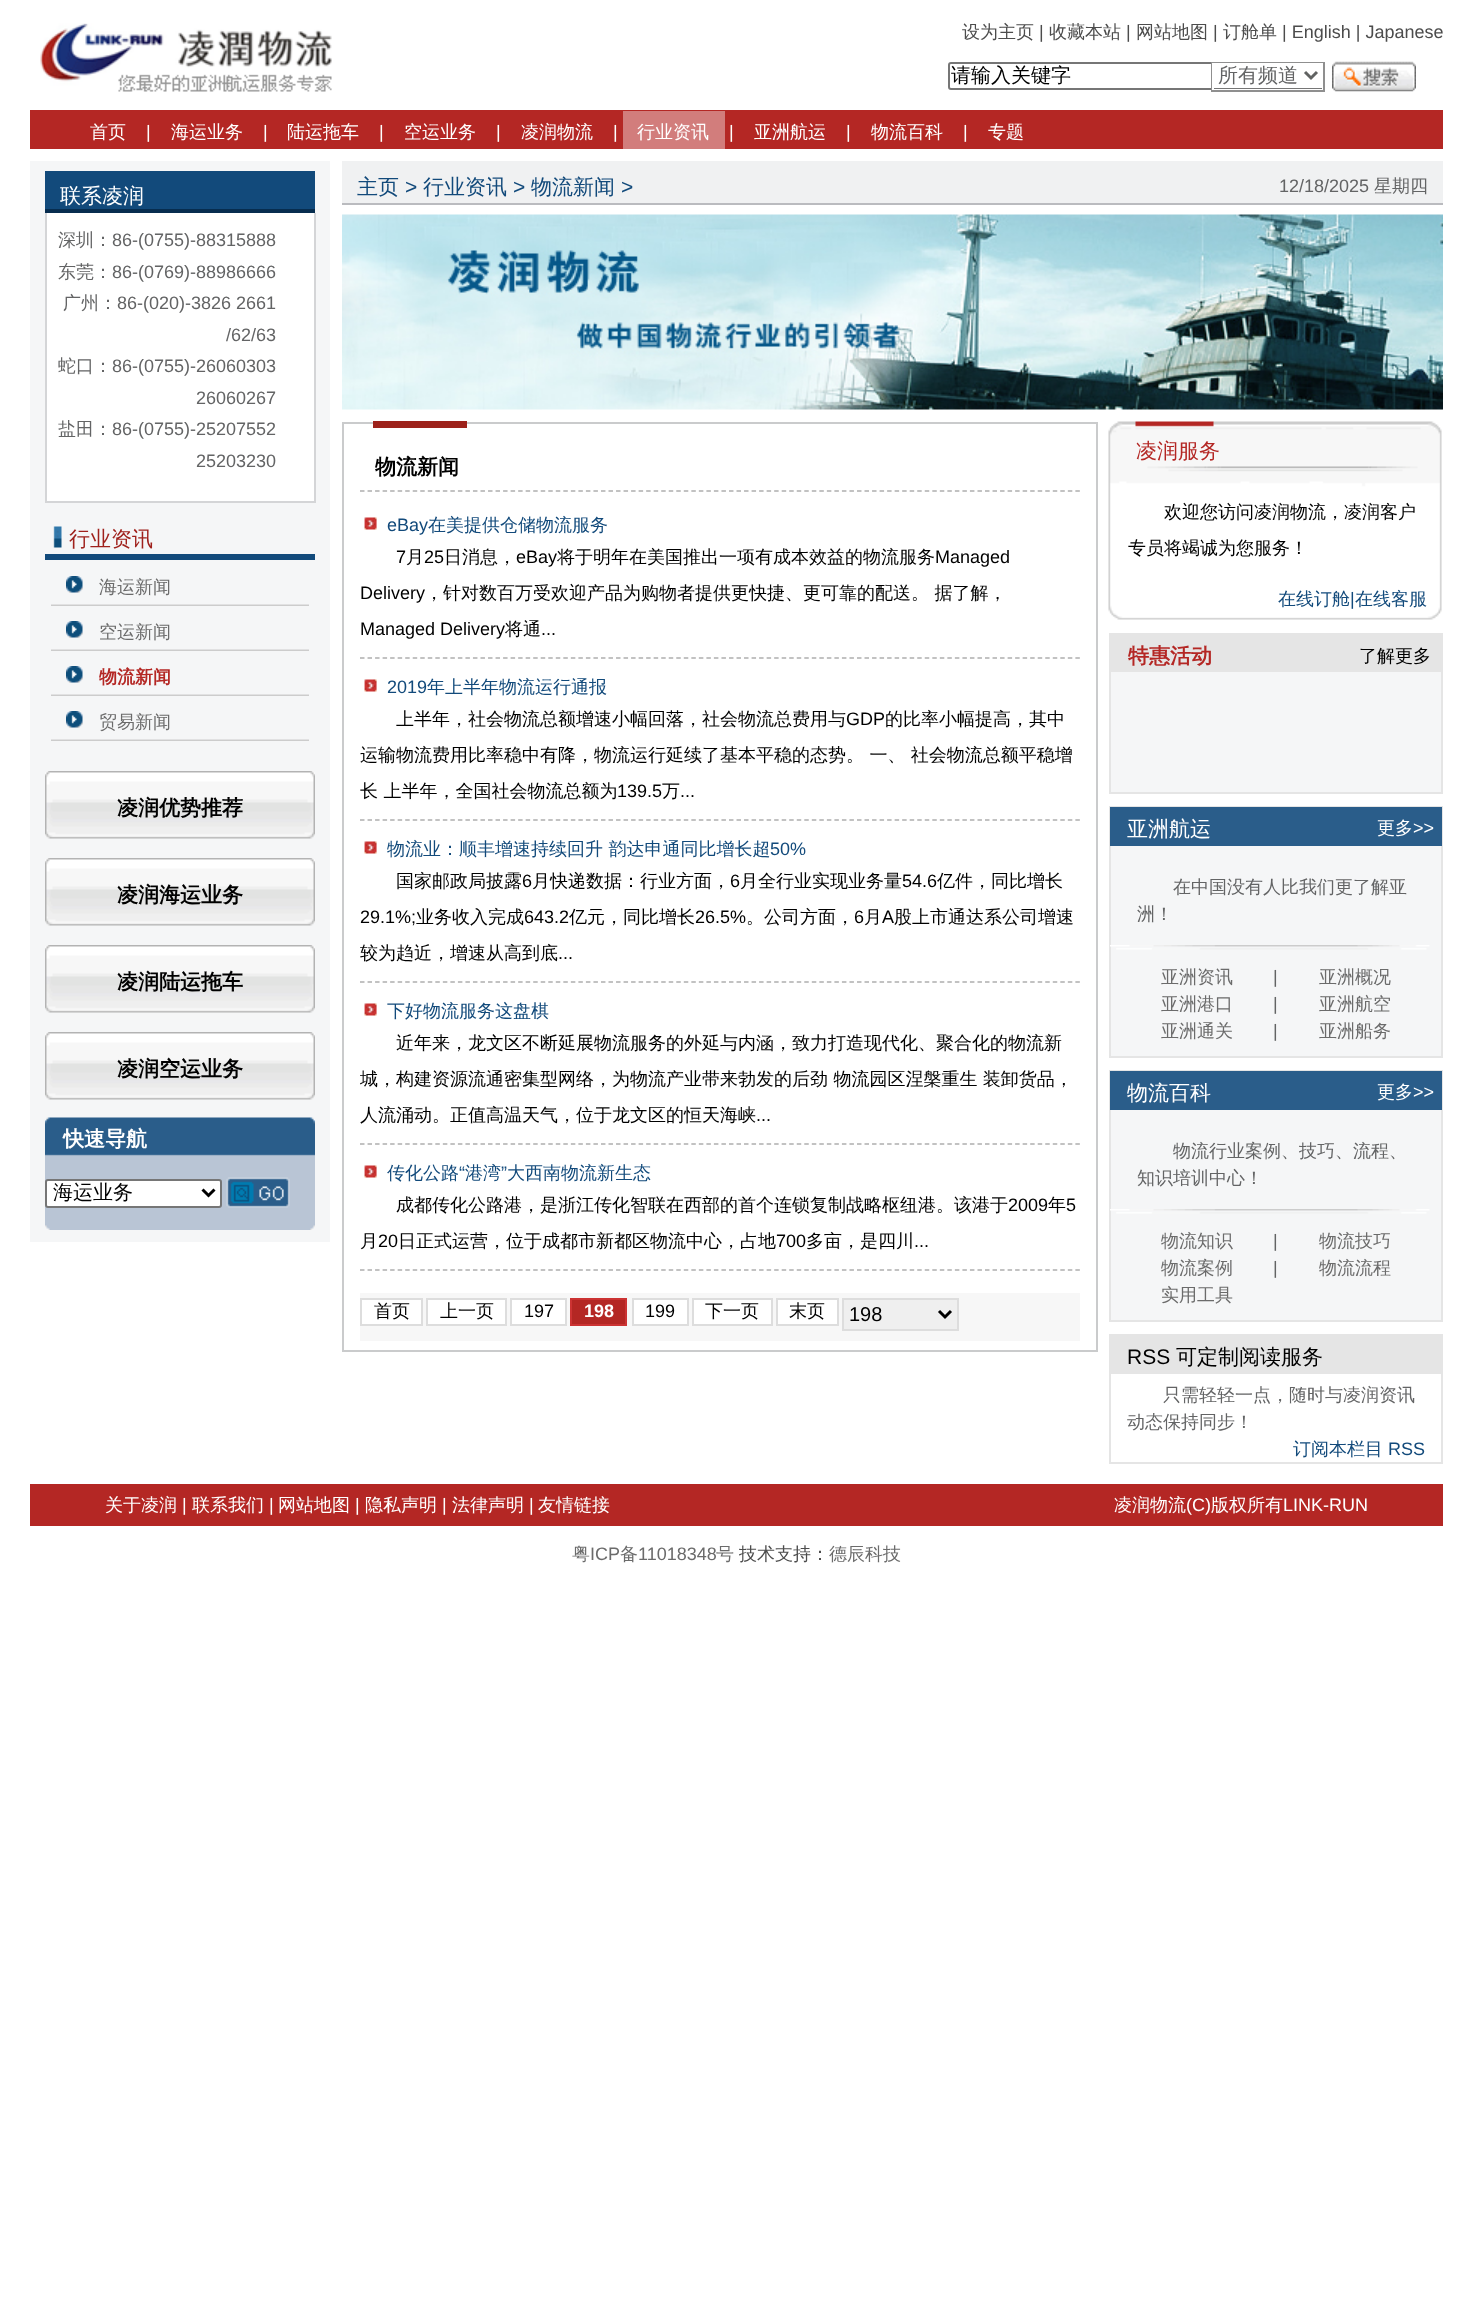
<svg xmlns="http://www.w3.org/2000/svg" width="1472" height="2308">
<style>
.a{font:500 18px WenQuanYi Zen Hei;fill:#4c4c4c}
.b{font:18px Liberation Sans;fill:#4c4c4c}
.c{font:500 20px WenQuanYi Zen Hei;fill:#000}
.d{font:500 20px WenQuanYi Zen Hei;fill:#636465}
.e{font:500 18px WenQuanYi Zen Hei;fill:#fff}
.f{font:18px Liberation Sans;fill:#fff}
.g{font:500 21px WenQuanYi Zen Hei;fill:#fff}
.h{font:500 18px WenQuanYi Zen Hei;fill:#636465}
.i{font:18px Liberation Sans;fill:#636465}
.j{font:500 21px WenQuanYi Zen Hei;fill:#9f211c}
.k{font:500 18px WenQuanYi Zen Hei;fill:#6b6b6b}
.l{font:bold 18px WenQuanYi Zen Hei;fill:#b42724}
.m{font:bold 21px WenQuanYi Zen Hei;fill:#000}
.n{font:bold 21px WenQuanYi Zen Hei;fill:#fff}
.o{font:500 21px WenQuanYi Zen Hei;fill:#124a7b}
.p{font:21px Liberation Sans;fill:#124a7b}
.q{font:18px Liberation Sans;fill:#124a7b}
.r{font:500 18px WenQuanYi Zen Hei;fill:#124a7b}
.s{font:18px Liberation Sans;fill:#000}
.t{font:500 18px WenQuanYi Zen Hei;fill:#000}
.u{font:bold 18px Liberation Sans;fill:#fff}
.v{font:20px Liberation Sans;fill:#000}
.w{font:500 21px WenQuanYi Zen Hei;fill:#b42724}
.x{font:bold 21px WenQuanYi Zen Hei;fill:#b42724}
.y{font:21px Liberation Sans;fill:#000}
.z{font:500 21px WenQuanYi Zen Hei;fill:#000}
.a1{font:18px Liberation Sans;fill:#6b6b6b}
</style>
<defs>
<clipPath id="clip1"><path d="M1214 65h108v24H1214z"/></clipPath>
</defs>
<rect width="100%" height="100%" fill="#fff"/>
<image href="1.png" x="40" y="23" width="292" height="69"/>
<rect fill="none" stroke="#767676" stroke-width="2" x="949" y="63" width="270" height="26" rx="2"/>
<path fill="none" stroke="#8f8f8f" stroke-width="2" d="M1212 63h112v28H1212z"/>
<path fill="none" stroke="#fff" stroke-width="2" d="M1213 64h109v25H1213z"/>
<path fill="#fff" d="M1217 65h3v23H1217z"/>
<g clip-path="url(#clip1)">
<rect fill="none" stroke="#767676" stroke-width="2" x="1212" y="61" width="112" height="28" rx="2"/>
</g>
<path fill="none" stroke="#616362" stroke-width="3" d="M1305 72l6 6l6-6"/>
<image href="2.png" x="1332" y="61" width="84" height="31"/>
<path fill="#b42724" d="M30 110h1413v39H30z"/>
<path fill="#d27d7c" d="M623 111h102v38H623z"/>
<path fill="#f5f6f7" d="M30 161h300v1081H30z"/>
<path fill="#124a7b" d="M45 171h270v38H45z"/>
<path fill="#072d4f" d="M45 209h270v4H45z"/>
<path fill="#fff" d="M47 213h267v288H47z"/>
<path fill="#d4d5d7" d="M314 213h2v290H314z"/>
<path fill="#d4d5d7" d="M45 501h270v2H45z"/>
<path fill="#d4d5d7" d="M45 213h2v290H45z"/>
<image href="3.png" x="53" y="526" width="9" height="22"/>
<path fill="#124a7b" d="M45 554h270v6H45z"/>
<image href="4.png" x="51" y="604" width="258" height="2"/>
<image href="5.png" x="66" y="576" width="17" height="17"/>
<image href="4.png" x="51" y="649" width="258" height="2"/>
<image href="5.png" x="66" y="621" width="17" height="17"/>
<image href="4.png" x="51" y="694" width="258" height="2"/>
<image href="5.png" x="66" y="666" width="17" height="17"/>
<image href="4.png" x="51" y="739" width="258" height="2"/>
<image href="5.png" x="66" y="711" width="17" height="17"/>
<image href="6.png" x="45" y="771" width="270" height="68"/>
<image href="6.png" x="45" y="858" width="270" height="68"/>
<image href="6.png" x="45" y="945" width="270" height="68"/>
<image href="6.png" x="45" y="1032" width="270" height="68"/>
<image href="7.png" x="45" y="1117" width="270" height="113"/>
<rect fill="#fff" stroke="#767676" stroke-width="2" x="46" y="1180" width="175" height="27" rx="2"/>
<path fill="none" stroke="#000" stroke-width="3" d="M202.5 1189.5l6 6l6-6"/>
<image href="8.png" x="226" y="1177" width="64" height="31"/>
<path fill="#f0f1f2" d="M342 161h1101v42H342z"/>
<path fill="#babbbf" d="M342 203h1101v2H342z"/>
<image href="9.png" x="342" y="214" width="1101" height="196"/>
<path fill="none" stroke="#cacbcc" stroke-width="2" d="M343 423h754v928H343z"/>
<path fill="#9d221b" d="M373 421h94v7H373z"/>
<path fill="none" stroke="#afafaf" stroke-width="1.5" stroke-dasharray="4.5 3.03" d="M360 491h720"/>
<path fill="none" stroke="#afafaf" stroke-width="1.5" stroke-dasharray="4.5 3.03" d="M360 658h720"/>
<image href="10.png" x="364" y="517" width="13" height="13"/>
<path fill="none" stroke="#afafaf" stroke-width="1.5" stroke-dasharray="4.5 3.03" d="M360 820h720"/>
<image href="10.png" x="364" y="679" width="13" height="13"/>
<path fill="none" stroke="#afafaf" stroke-width="1.5" stroke-dasharray="4.5 3.03" d="M360 982h720"/>
<image href="10.png" x="364" y="841" width="13" height="13"/>
<path fill="none" stroke="#afafaf" stroke-width="1.5" stroke-dasharray="4.5 3.03" d="M360 1144h720"/>
<image href="10.png" x="364" y="1003" width="13" height="13"/>
<path fill="none" stroke="#afafaf" stroke-width="1.5" stroke-dasharray="4.5 3.03" d="M360 1270h720"/>
<image href="10.png" x="364" y="1165" width="13" height="13"/>
<path fill="#f7f7f7" d="M360 1293h720v48H360z"/>
<path fill="#fff" stroke="#ddd" stroke-width="2" d="M361 1299h61v26H361z"/>
<path fill="#fff" stroke="#ddd" stroke-width="2" d="M427 1299h79v26H427z"/>
<path fill="#fff" stroke="#ddd" stroke-width="2" d="M511 1299h55v26H511z"/>
<path fill="#b42724" stroke="#c33" stroke-width="2" d="M571 1299h55v26H571z"/>
<path fill="#fff" stroke="#ddd" stroke-width="2" d="M633 1299h55v26H633z"/>
<path fill="#fff" stroke="#ddd" stroke-width="2" d="M693 1299h79v26H693z"/>
<path fill="#fff" stroke="#ddd" stroke-width="2" d="M777 1299h61v26H777z"/>
<path fill="#efefef" stroke="#ddd" stroke-width="2" d="M843 1299h115v31H843z"/>
<path fill="none" stroke="#000" stroke-width="3" d="M939 1311l6 6l6-6"/>
<image href="11.png" x="1108" y="421" width="334" height="199"/>
<path fill="#f5f6f7" d="M1111 672h330v120H1111z"/>
<path fill="none" stroke="#e5e5e5" stroke-width="2" d="M1110 634h332v159H1110z"/>
<path fill="#e5e5e5" d="M1111 635h330v37H1111z"/>
<path fill="#f5f6f7" d="M1111 846h330v210H1111z"/>
<path fill="none" stroke="#e5e5e5" stroke-width="2" d="M1110 807h332v250H1110z"/>
<path fill="#2a5d8a" d="M1110 807h332v39H1110z"/>
<image href="12.png" x="1110" y="945" width="320" height="5"/>
<path fill="#f5f6f7" d="M1111 1110h330v210H1111z"/>
<path fill="none" stroke="#e5e5e5" stroke-width="2" d="M1110 1071h332v250H1110z"/>
<path fill="#2a5d8a" d="M1110 1071h332v39H1110z"/>
<image href="12.png" x="1110" y="1209" width="320" height="5"/>
<path fill="none" stroke="#e5e5e5" stroke-width="2" d="M1110 1335h332v128H1110z"/>
<path fill="#e5e5e5" d="M1111 1336h330v38H1111z"/>
<path fill="#b42724" d="M30 1484h1413v42H30z"/>
<text class="a" x="962" y="38">设为主页</text>
<text class="b" x="1039" y="38">|</text>
<text class="a" x="1049" y="38">收藏本站</text>
<text class="b" x="1126" y="38">|</text>
<text class="a" x="1136" y="38">网站地图</text>
<text class="b" x="1213" y="38">|</text>
<text class="a" x="1223" y="38">订舱单</text>
<text class="b" x="1282" y="38">| English | Japanese</text>
<text class="c" x="951" y="82">请输入关键字</text>
<text class="d" x="1218" y="82">所有频道</text>
<text class="e" x="90" y="138">首页</text>
<text class="f" x="146" y="138">|</text>
<text class="e" x="171" y="138">海运业务</text>
<text class="f" x="263" y="138">|</text>
<text class="e" x="287" y="138">陆运拖车</text>
<text class="f" x="379" y="138">|</text>
<text class="e" x="404" y="138">空运业务</text>
<text class="f" x="496" y="138">|</text>
<text class="e" x="521" y="138">凌润物流</text>
<text class="f" x="613" y="138">|</text>
<text class="e" x="637" y="138">行业资讯</text>
<text class="f" x="729" y="138">|</text>
<text class="e" x="754" y="138">亚洲航运</text>
<text class="f" x="846" y="138">|</text>
<text class="e" x="871" y="138">物流百科</text>
<text class="f" x="963" y="138">|</text>
<text class="e" x="988" y="138">专题</text>
<text class="g" x="60" y="203">联系凌润</text>
<text class="h" x="58" y="246">深圳：</text>
<text class="i" x="112" y="246">86-(0755)-88315888</text>
<text class="h" x="58" y="278">东莞：</text>
<text class="i" x="112" y="278">86-(0769)-88986666</text>
<text class="h" x="63" y="309">广州：</text>
<text class="i" x="117" y="309">86-(020)-3826 2661</text>
<text class="i" x="226" y="341">/62/63</text>
<text class="h" x="58" y="372">蛇口：</text>
<text class="i" x="112" y="372">86-(0755)-26060303</text>
<text class="i" x="196" y="404">26060267</text>
<text class="h" x="58" y="435">盐田：</text>
<text class="i" x="112" y="435">86-(0755)-25207552</text>
<text class="i" x="196" y="467">25203230</text>
<text class="j" x="69" y="546">行业资讯</text>
<text class="k" x="99" y="593">海运新闻</text>
<text class="k" x="99" y="638">空运新闻</text>
<text class="l" x="99" y="683">物流新闻</text>
<text class="k" x="99" y="728">贸易新闻</text>
<text class="m" x="117" y="815">凌润优势推荐</text>
<text class="m" x="117" y="902">凌润海运业务</text>
<text class="m" x="117" y="989">凌润陆运拖车</text>
<text class="m" x="117" y="1076">凌润空运业务</text>
<text class="n" x="63" y="1146">快速导航</text>
<text class="c" x="53" y="1199">海运业务</text>
<text class="o" x="357" y="194">主页</text>
<text class="p" x="405" y="194">&gt;</text>
<text class="o" x="423" y="194">行业资讯</text>
<text class="p" x="513" y="194">&gt;</text>
<text class="o" x="531" y="194">物流新闻</text>
<text class="p" x="621" y="194">&gt;</text>
<text class="i" x="1279" y="192">12/18/2025</text>
<text class="h" x="1374" y="192">星期四</text>
<text class="m" x="375" y="474">物流新闻</text>
<text class="q" x="387" y="531">eBay</text>
<text class="r" x="428" y="531">在美提供仓储物流服务</text>
<text class="s" x="396" y="563">7</text>
<text class="t" x="406" y="563">月</text>
<text class="s" x="424" y="563">25</text>
<text class="t" x="444" y="563">日消息，</text>
<text class="s" x="516" y="563">eBay</text>
<text class="t" x="557" y="563">将于明年在美国推出一项有成本效益的物流服务</text>
<text class="s" x="935" y="563">Managed</text>
<text class="s" x="360" y="599">Delivery</text>
<text class="t" x="425" y="599">，针对数百万受欢迎产品为购物者提供更快捷、更可靠的配送。 据了解，</text>
<text class="s" x="360" y="635">Managed Delivery</text>
<text class="t" x="505" y="635">将通</text>
<text class="s" x="541" y="635">...</text>
<text class="q" x="387" y="693">2019</text>
<text class="r" x="427" y="693">年上半年物流运行通报</text>
<text class="t" x="396" y="725">上半年，社会物流总额增速小幅回落，社会物流总费用与</text>
<text class="s" x="846" y="725">GDP</text>
<text class="t" x="885" y="725">的比率小幅提高，其中</text>
<text class="t" x="360" y="761">运输物流费用比率稳中有降，物流运行延续了基本平稳的态势。 一、 社会物流总额平稳增</text>
<text class="t" x="360" y="797">长 上半年，全国社会物流总额为</text>
<text class="s" x="617" y="797">139.5</text>
<text class="t" x="662" y="797">万</text>
<text class="s" x="680" y="797">...</text>
<text class="r" x="387" y="855">物流业：顺丰增速持续回升 韵达申通同比增长超</text>
<text class="q" x="770" y="855">50%</text>
<text class="t" x="396" y="887">国家邮政局披露</text>
<text class="s" x="522" y="887">6</text>
<text class="t" x="532" y="887">月快递数据：行业方面，</text>
<text class="s" x="730" y="887">6</text>
<text class="t" x="740" y="887">月全行业实现业务量</text>
<text class="s" x="902" y="887">54.6</text>
<text class="t" x="937" y="887">亿件，同比增长</text>
<text class="s" x="360" y="923">29.1%;</text>
<text class="t" x="416" y="923">业务收入完成</text>
<text class="s" x="524" y="923">643.2</text>
<text class="t" x="569" y="923">亿元，同比增长</text>
<text class="s" x="695" y="923">26.5%</text>
<text class="t" x="746" y="923">。公司方面，</text>
<text class="s" x="854" y="923">6</text>
<text class="t" x="864" y="923">月</text>
<text class="s" x="882" y="923">A</text>
<text class="t" x="894" y="923">股上市通达系公司增速</text>
<text class="t" x="360" y="959">较为趋近，增速从高到底</text>
<text class="s" x="558" y="959">...</text>
<text class="r" x="387" y="1017">下好物流服务这盘棋</text>
<text class="t" x="396" y="1049">近年来，龙文区不断延展物流服务的外延与内涵，致力打造现代化、聚合化的物流新</text>
<text class="t" x="360" y="1085">城，构建资源流通密集型网络，为物流产业带来勃发的后劲 物流园区涅槃重生 装卸货品，</text>
<text class="t" x="360" y="1121">人流涌动。正值高温天气，位于龙文区的恒天海峡</text>
<text class="s" x="756" y="1121">...</text>
<text class="r" x="387" y="1179">传化公路</text>
<text class="q" x="459" y="1179">“</text>
<text class="r" x="465" y="1179">港湾</text>
<text class="q" x="501" y="1179">”</text>
<text class="r" x="507" y="1179">大西南物流新生态</text>
<text class="t" x="396" y="1211">成都传化公路港，是浙江传化智联在西部的首个连锁复制战略枢纽港。该港于</text>
<text class="s" x="1008" y="1211">2009</text>
<text class="t" x="1048" y="1211">年</text>
<text class="s" x="1066" y="1211">5</text>
<text class="t" x="360" y="1247">月</text>
<text class="s" x="378" y="1247">20</text>
<text class="t" x="398" y="1247">日正式运营，位于成都市新都区物流中心，占地</text>
<text class="s" x="776" y="1247">700</text>
<text class="t" x="806" y="1247">多亩，是四川</text>
<text class="s" x="914" y="1247">...</text>
<text class="t" x="374" y="1317">首页</text>
<text class="t" x="440" y="1317">上一页</text>
<text class="s" x="524" y="1317">197</text>
<text class="u" x="584" y="1317">198</text>
<text class="s" x="645" y="1317">199</text>
<text class="t" x="705" y="1317">下一页</text>
<text class="t" x="789" y="1317">末页</text>
<text class="v" x="849" y="1321">198</text>
<text class="w" x="1136" y="458">凌润服务</text>
<text class="t" x="1164" y="518">欢迎您访问凌润物流，凌润客户</text>
<text class="t" x="1128" y="554">专员将竭诚为您服务！</text>
<text class="r" x="1278" y="605">在线订舱</text>
<text class="q" x="1350" y="605">|</text>
<text class="r" x="1355" y="605">在线客服</text>
<text class="x" x="1128" y="663">特惠活动</text>
<text class="t" x="1359" y="662">了解更多</text>
<text class="g" x="1127" y="836">亚洲航运</text>
<text class="e" x="1377" y="834">更多</text>
<text class="f" x="1413" y="834">&gt;&gt;</text>
<text class="h" x="1173" y="893">在中国没有人比我们更了解亚</text>
<text class="h" x="1137" y="920">洲！</text>
<text class="k" x="1161" y="983">亚洲资讯</text>
<text class="i" x="1273" y="983">|</text>
<text class="k" x="1319" y="983">亚洲概况</text>
<text class="k" x="1161" y="1010">亚洲港口</text>
<text class="i" x="1273" y="1010">|</text>
<text class="k" x="1319" y="1010">亚洲航空</text>
<text class="k" x="1161" y="1037">亚洲通关</text>
<text class="i" x="1273" y="1037">|</text>
<text class="k" x="1319" y="1037">亚洲船务</text>
<text class="g" x="1127" y="1100">物流百科</text>
<text class="e" x="1377" y="1098">更多</text>
<text class="f" x="1413" y="1098">&gt;&gt;</text>
<text class="h" x="1173" y="1157">物流行业案例、技巧、流程、</text>
<text class="h" x="1137" y="1184">知识培训中心！</text>
<text class="k" x="1161" y="1247">物流知识</text>
<text class="i" x="1273" y="1247">|</text>
<text class="k" x="1319" y="1247">物流技巧</text>
<text class="k" x="1161" y="1274">物流案例</text>
<text class="i" x="1273" y="1274">|</text>
<text class="k" x="1319" y="1274">物流流程</text>
<text class="k" x="1161" y="1301">实用工具</text>
<text class="y" x="1127" y="1364">RSS</text>
<text class="z" x="1176" y="1364">可定制阅读服务</text>
<text class="h" x="1163" y="1401">只需轻轻一点，随时与凌润资讯</text>
<text class="h" x="1127" y="1428">动态保持同步！</text>
<text class="r" x="1293" y="1455">订阅本栏目</text>
<text class="q" x="1388" y="1455">RSS</text>
<text class="e" x="105" y="1511">关于凌润</text>
<text class="f" x="182" y="1511">|</text>
<text class="e" x="192" y="1511">联系我们</text>
<text class="f" x="269" y="1511">|</text>
<text class="e" x="278" y="1511">网站地图</text>
<text class="f" x="355" y="1511">|</text>
<text class="e" x="365" y="1511">隐私声明</text>
<text class="f" x="442" y="1511">|</text>
<text class="e" x="452" y="1511">法律声明</text>
<text class="f" x="529" y="1511">|</text>
<text class="e" x="538" y="1511">友情链接</text>
<text class="e" x="1114" y="1511">凌润物流</text>
<text class="f" x="1186" y="1511">(C)</text>
<text class="e" x="1211" y="1511">版权所有</text>
<text class="f" x="1283" y="1511">LINK-RUN</text>
<text class="k" x="572" y="1560">粤</text>
<text class="a1" x="590" y="1560">ICP</text>
<text class="k" x="620" y="1560">备</text>
<text class="a1" x="638" y="1560">11018348</text>
<text class="k" x="716" y="1560">号</text>
<text class="a" x="739" y="1560">技术支持：</text>
<text class="k" x="829" y="1560">德辰科技</text>
</svg>
